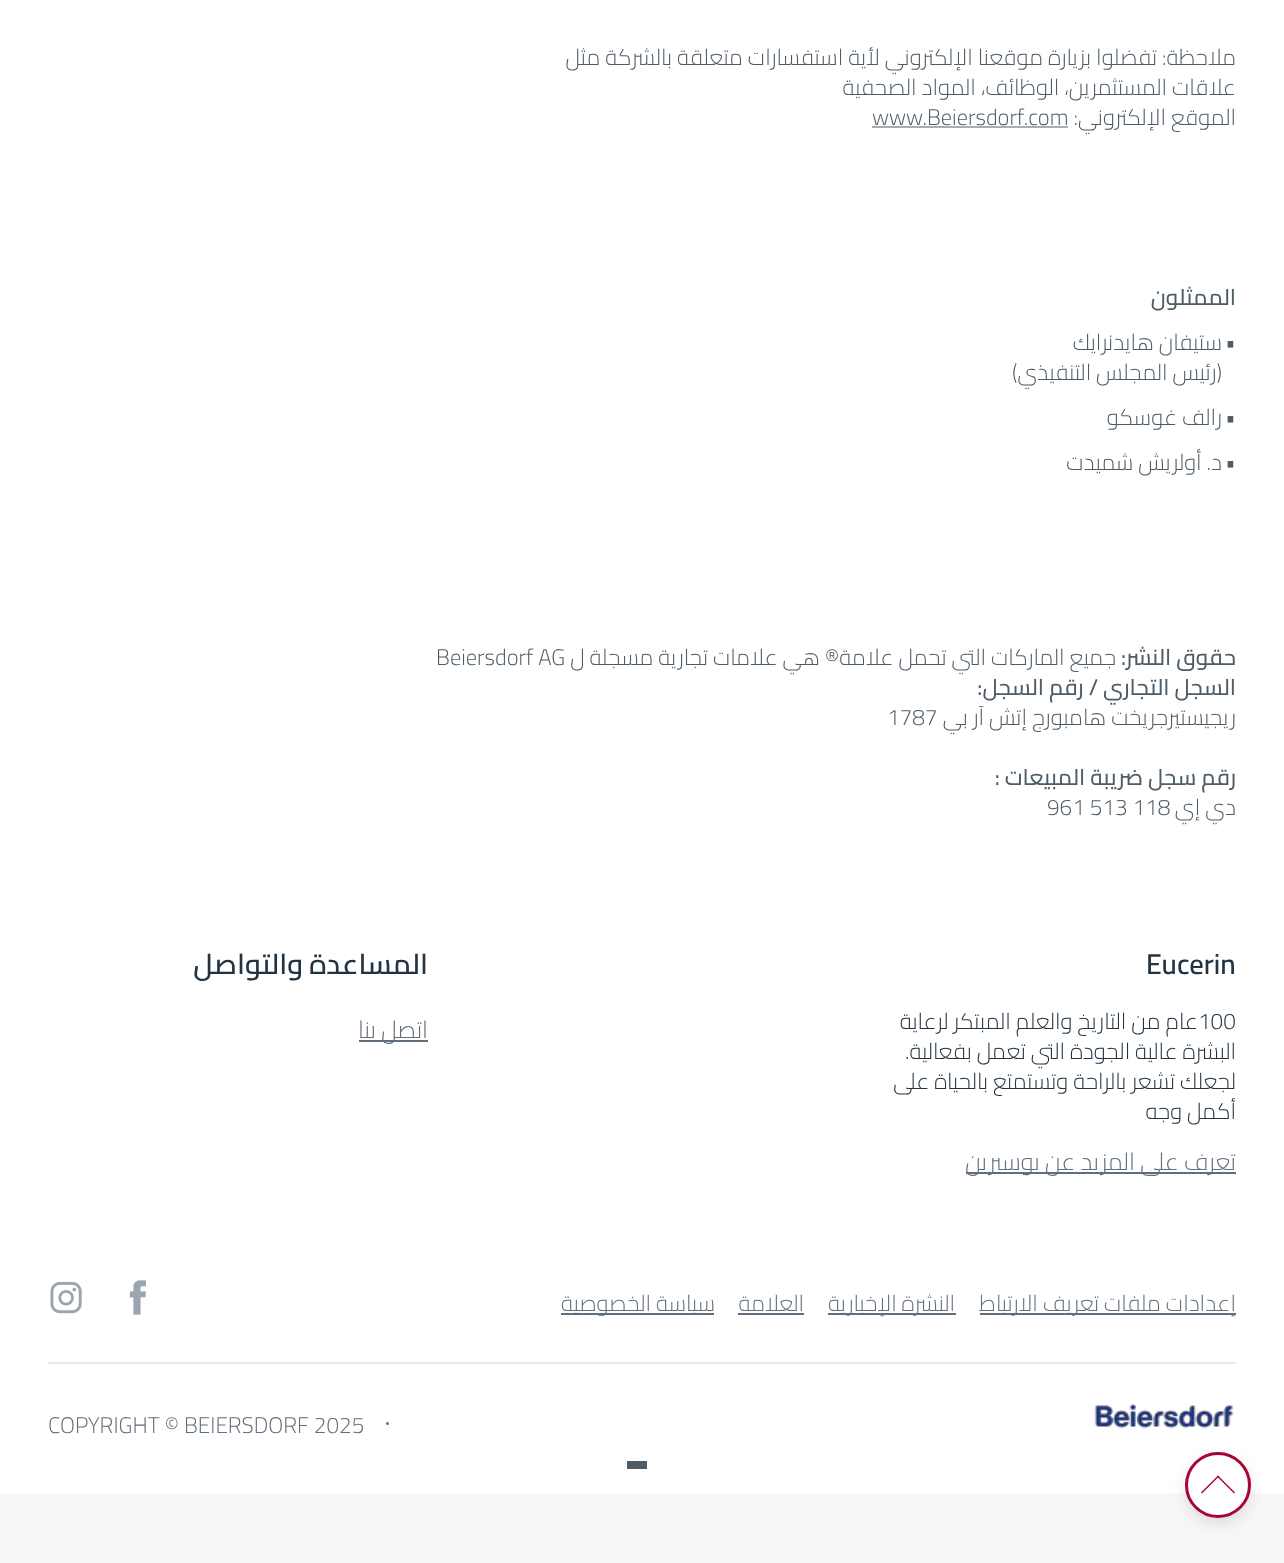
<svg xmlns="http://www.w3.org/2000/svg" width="1284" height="1563">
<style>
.a{font:300 22.5px Cairo;direction:rtl;fill:#4e5c67}
.b{font:300 22.5px Cairo;fill:#4e5c67}
.c{font:500 22.5px Cairo;direction:rtl;fill:#4e5c67}
.d{font:600 28.5px Cairo;fill:#223341}
.e{font:300 22.5px Cairo;fill:#223341}
.f{font:300 22.5px Cairo;direction:rtl;fill:#223341}
.g{font:300 24px Cairo;direction:rtl;fill:#616e7c}
.h{font:600 28.5px Cairo;direction:rtl;fill:#223341}
.i{font:300 22.5px Cairo;direction:rtl;fill:#616e7c}
.j{font:300 22.5px Cairo;fill:#616e7c}
</style>
<rect width="100%" height="100%" fill="#fff"/>
<path fill="#a7adb3" d="M872 126h196v2H872z"/>
<path fill="#616e7c" d="M966 1172h270v2H966z"/>
<path fill="#616e7c" d="M359 1040h69v2H359z"/>
<path fill="#616e7c" d="M980 1313h256v2H980z"/>
<path fill="#616e7c" d="M828 1313h128v2H828z"/>
<path fill="#616e7c" d="M738 1313h66v2H738z"/>
<path fill="#616e7c" d="M561 1313h153v2H561z"/>
<image href="1.png" x="129" y="1280" width="17" height="35"/>
<image href="2.png" x="50" y="1281" width="32" height="33"/>
<path fill="#eaeaea" d="M48 1362h1188v2H48z"/>
<image href="3.png" x="1094" y="1403" width="140" height="26"/>
<circle fill="#616e7c" cx="387.5" cy="1423.5" r="1.5"/>
<path fill="#f7f7f7" d="M0 1494h1284v69H0z"/>
<rect fill="#0000001a" filter="blur(7.5px)" x="1185" y="1458" width="66" height="66" rx="33"/>
<circle fill="#fff" stroke="#a70532" stroke-width="3" cx="1218" cy="1485" r="31.5"/>
<path fill="#a70532" d="M1218 1475.5l17 17l-1 1l-17-17z"/>
<path fill="#a70532" d="M1218 1475.5l1 1l-17 17l-1-1z"/>
<path fill="#4e5c67" d="M627 1461h20v8H627z"/>
<text class="a" x="1236" y="65">ملاحظة: تفضلوا بزيارة موقعنا الإلكتروني لأية استفسارات متعلقة بالشركة مثل</text>
<text class="a" x="1236" y="95">علاقات المستثمرين، الوظائف، المواد الصحفية</text>
<text class="a" x="1236" y="125">الموقع الإلكتروني:</text>
<text class="b" x="872" y="125">www.Beiersdorf.com</text>
<text class="c" x="1236" y="305">الممثلون</text>
<text class="b" x="1225" y="350">•</text>
<text class="a" x="1222" y="350">ستيفان هايدنرايك</text>
<text class="a" x="1222" y="380">(رئيس المجلس التنفيذي)</text>
<text class="b" x="1225" y="425">•</text>
<text class="a" x="1222" y="425">رالف غوسكو</text>
<text class="b" x="1225" y="470">•</text>
<text class="a" x="1222" y="470">د. أولريش شميدت</text>
<text class="c" x="1236" y="665">حقوق النشر:</text>
<text class="a" x="1116" y="665">جميع الماركات التي تحمل علامة® هي علامات تجارية مسجلة ل</text>
<text class="b" x="436" y="665">Beiersdorf AG</text>
<text class="c" x="1236" y="695">السجل التجاري / رقم السجل:</text>
<text class="a" x="1236" y="725">ريجيستيرجريخت هامبورج إتش آر بي</text>
<text class="b" x="887" y="725">1787</text>
<text class="c" x="1236" y="785">رقم سجل ضريبة المبيعات :</text>
<text class="a" x="1236" y="815">دي إي</text>
<text class="b" x="1047" y="815">961 513 118</text>
<text class="d" x="1146" y="974">Eucerin</text>
<text class="e" x="1198" y="1029">100</text>
<text class="f" x="1198" y="1029">عام من التاريخ والعلم المبتكر لرعاية</text>
<text class="f" x="1236" y="1059">البشرة عالية الجودة التي تعمل بفعالية.</text>
<text class="f" x="1236" y="1089">لجعلك تشعر بالراحة وتستمتع بالحياة على</text>
<text class="f" x="1236" y="1119">أكمل وجه</text>
<text class="g" x="1236" y="1170">تعرف على المزيد عن يوسيرين</text>
<text class="h" x="428" y="974">المساعدة والتواصل</text>
<text class="g" x="428" y="1038">اتصل بنا</text>
<text class="i" x="1236" y="1311">إعدادات ملفات تعريف الارتباط</text>
<text class="i" x="955" y="1311">النشرة الإخبارية</text>
<text class="i" x="804" y="1311">العلامة</text>
<text class="i" x="715" y="1311">سياسة الخصوصية</text>
<text class="j" x="48" y="1433">COPYRIGHT © BEIERSDORF 2025</text>
</svg>
